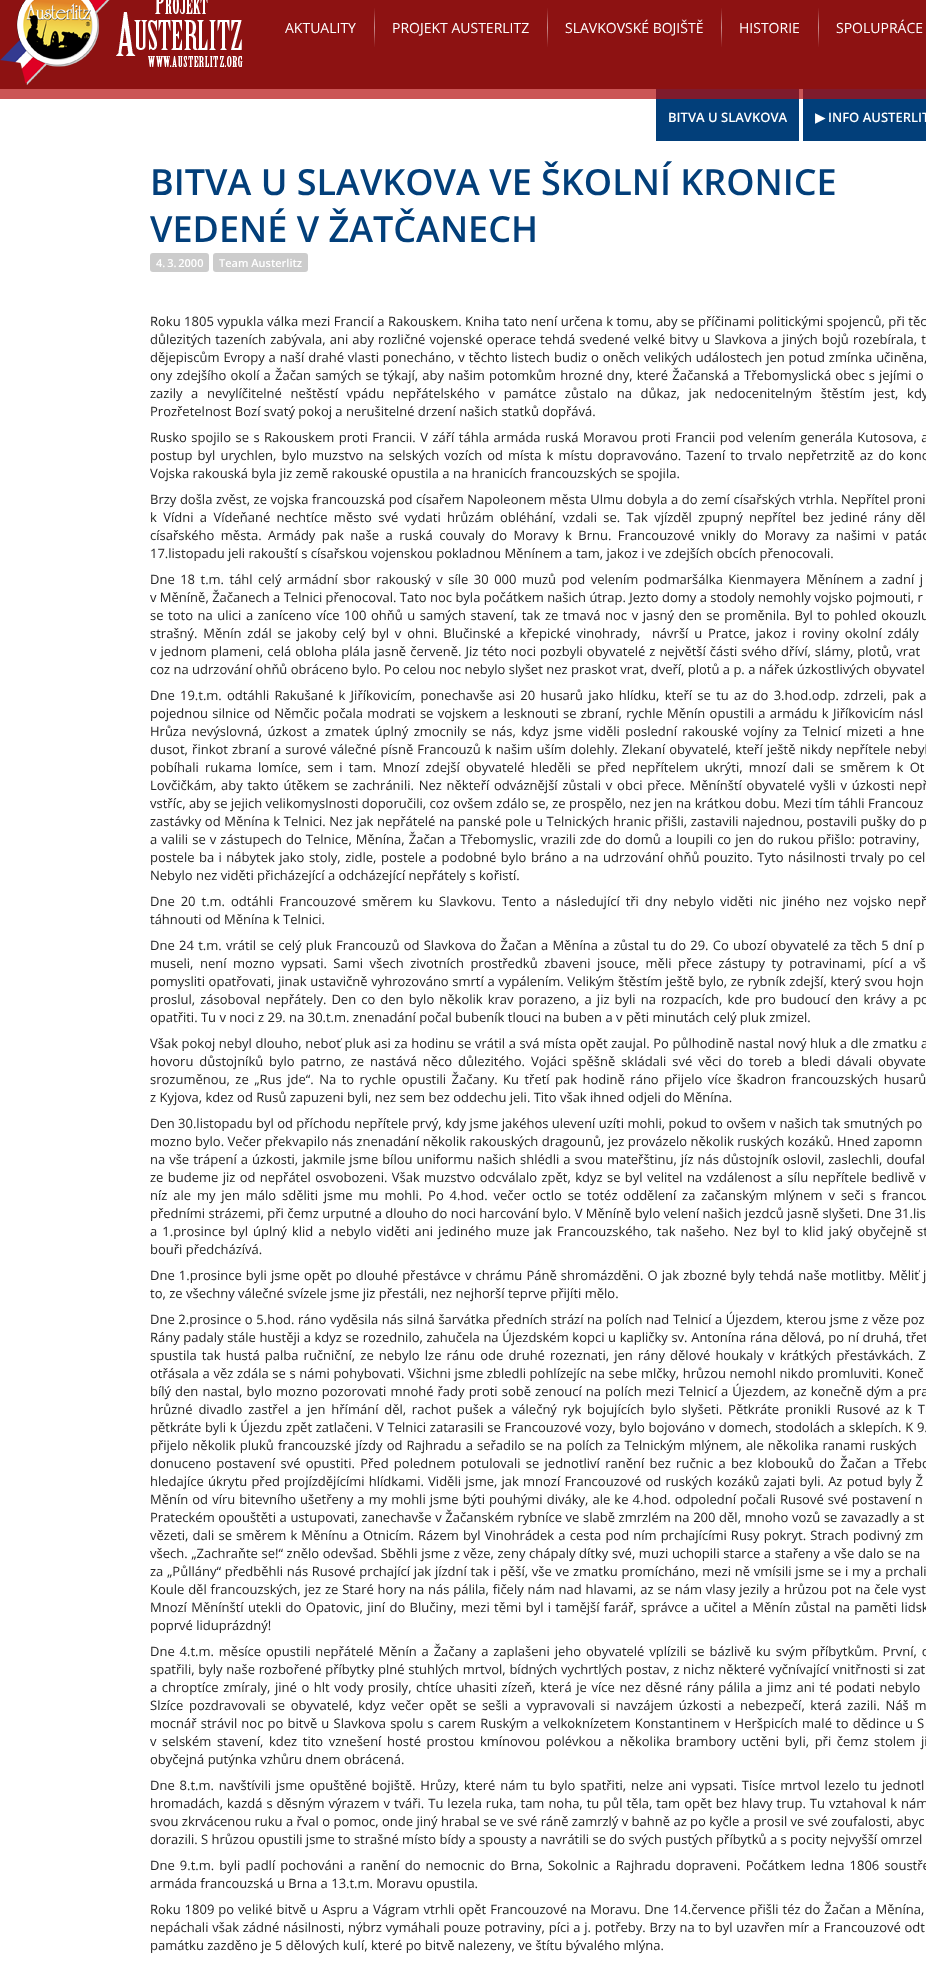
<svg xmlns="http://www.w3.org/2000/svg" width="926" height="1972">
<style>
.a{font:14px Open Sans;fill:#fff}
.b{font:600 13px Open Sans;fill:#fff}
.c{font:bold 13px DejaVu Sans;fill:#fff}
.d{font:600 36px Open Sans;fill:#023f7a}
.e{font:600 11px Open Sans;fill:#fff}
.f{font:13px Open Sans;fill:#242424}
</style>
<rect width="100%" height="100%" fill="#8d1212"/>
<image href="1.png" x="0" y="0" width="243" height="85"/>
<image href="2.png" x="374" y="8" width="1" height="39"/>
<image href="2.png" x="547" y="8" width="1" height="39"/>
<image href="2.png" x="721" y="8" width="1" height="39"/>
<image href="2.png" x="818" y="8" width="1" height="39"/>
<path fill="#fff" d="M0 99h926v1873H0z"/>
<path fill="#023f7a" d="M656 99h143v42H656z"/>
<path fill="#cb5555" d="M0 89h803v10H0z"/>
<path fill="#7f1b2d" d="M656 89h143v10H656z"/>
<path fill="#023f7a" d="M803 99h123v42H803z"/>
<path fill="#7f1b2d" d="M803 89h123v10H803z"/>
<rect fill="#ccc" x="150" y="253" width="59" height="19" rx="3"/>
<rect fill="#ccc" x="213" y="253" width="95" height="19" rx="3"/>
<text class="a" x="285" y="33">AKTUALITY</text>
<text class="a" x="392" y="33">PROJEKT AUSTERLITZ</text>
<text class="a" x="565" y="33">SLAVKOVSKÉ BOJIŠTĚ</text>
<text class="a" x="739" y="33">HISTORIE</text>
<text class="a" x="836" y="33">SPOLUPRÁCE</text>
<text class="b" x="668" y="122">BITVA U SLAVKOVA</text>
<text class="c" x="815" y="122">▶</text>
<text class="b" x="828" y="122">INFO AUSTERLIT</text>
<text class="d" x="150" y="195">BITVA U SLAVKOVA VE ŠKOLNÍ KRONICE</text>
<text class="d" x="150" y="242">VEDENÉ V ŽATČANECH</text>
<text class="e" x="156" y="267">4. 3. 2000</text>
<text class="e" x="219" y="267">Team Austerlitz</text>
<text class="f" x="150" y="326" word-spacing="0.1">Roku 1805 vypukla válka mezi Francií a Rakouskem. Kniha tato není určena k tomu, aby se příčinami politickými spojenců, při těc</text>
<text class="f" x="150" y="344" word-spacing="0.75">důlezitých tazeních zabývala, ani aby rozličné vojenské operace tehdá svedené velké bitvy u Slavkova a jiných bojů rozebírala, t</text>
<text class="f" x="150" y="362" word-spacing="0.5">dějepiscům Evropy a naší drahé vlasti ponecháno, v těchto listech budiz o oněch velikých událostech jen potud zmínka učiněna,</text>
<text class="f" x="150" y="380" word-spacing="0.75">ony zdejšího okolí a Žačan samých se týkají, aby našim potomkům hrozné dny, které Žačanská a Třebomyslická obec s jejími o</text>
<text class="f" x="150" y="398" word-spacing="5.25">zazily a nevylíčitelné neštěstí vpádu nepřátelského v památce zůstalo na důkaz, jak nedocenitelným štěstím jest, kdy</text>
<text class="f" x="150" y="416">Prozřetelnost Bozí svatý pokoj a nerušitelné drzení našich statků dopřává.</text>
<text class="f" x="150" y="442" word-spacing="1.1">Rusko spojilo se s Rakouskem proti Francii. V září táhla armáda ruská Moravou proti Francii pod velením generála Kutosova, a</text>
<text class="f" x="150" y="460" word-spacing="1.7">postup byl urychlen, bylo muzstvo na selských vozích od místa k místu dopravováno. Tazení to trvalo nepřetrzitě az do konc</text>
<text class="f" x="150" y="478">Vojska rakouská byla jiz země rakouské opustila a na hranicích francouzských se spojila.</text>
<text class="f" x="150" y="504" word-spacing="0.2">Brzy došla zvěst, ze vojska francouzská pod císařem Napoleonem města Ulmu dobyla a do zemí císařských vtrhla. Nepřítel proni</text>
<text class="f" x="150" y="522" word-spacing="3">k Vídni a Vídeňané nechtíce město své vydati hrůzám obléhání, vzdali se. Tak vjízděl zpupný nepřítel bez jediné rány děl</text>
<text class="f" x="150" y="540" word-spacing="3.1">císařského města. Armády pak naše a ruská couvaly do Moravy k Brnu. Francouzové vnikly do Moravy za našimi v patác</text>
<text class="f" x="150" y="558">17.listopadu jeli rakouští s císařskou vojenskou pokladnou Měnínem a tam, jakoz i ve zdejších obcích přenocovali.</text>
<text class="f" x="150" y="584" word-spacing="2.1">Dne 18 t.m. táhl celý armádní sbor rakouský v síle 30 000 muzů pod velením podmaršálka Kienmayera Měnínem a zadní j</text>
<text class="f" x="150" y="602">v Měníně, Žačanech a Telnici přenocoval. Tato noc byla počátkem našich útrap. Jezto domy a stodoly nemohly vojsko pojmouti, r</text>
<text class="f" x="150" y="620" word-spacing="1.2">se toto na ulici a zaníceno více 100 ohňů u samých stavení, tak ze tmavá noc v jasný den se proměnila. Byl to pohled okouzlu</text>
<text class="f" xml:space="preserve" x="150" y="638" word-spacing="2.4">strašný. Měnín zdál se jakoby celý byl v ohni. Blučinské a křepické vinohrady,  návrší u Pratce, jakoz i roviny okolní zdály</text>
<text class="f" x="150" y="656" word-spacing="0.6">v jednom plameni, celá obloha plála jasně červeně. Jiz této noci pozbyli obyvatelé z největší části svého dříví, slámy, plotů, vrat</text>
<text class="f" x="150" y="674">coz na udrzování ohňů obráceno bylo. Po celou noc nebylo slyšet nez praskot vrat, dveří, plotů a p. a nářek úzkostlivých obyvatel</text>
<text class="f" x="150" y="700" word-spacing="1.9">Dne 19.t.m. odtáhli Rakušané k Jiříkovicím, ponechavše asi 20 husarů jako hlídku, kteří se tu az do 3.hod.odp. zdrzeli, pak a</text>
<text class="f" x="150" y="718" word-spacing="0.9">pojednou silnice od Němčic počala modrati se vojskem a lesknouti se zbraní, rychle Měnín opustili a armádu k Jiříkovicím násl</text>
<text class="f" x="150" y="736" word-spacing="2">Hrůza nevýslovná, úzkost a zmatek úplný zmocnily se nás, kdyz jsme viděli poslední rakouské vojíny za Telnicí mizeti a hne</text>
<text class="f" x="150" y="754" word-spacing="0.75">dusot, řinkot zbraní a surové válečné písně Francouzů k našim uším dolehly. Zlekaní obyvatelé, kteří ještě nikdy nepřítele nebyl</text>
<text class="f" x="150" y="772" word-spacing="2.9">pobíhali rukama lomíce, sem i tam. Mnozí zdejší obyvatelé hleděli se před nepřítelem ukrýti, mnozí dali se směrem k Ot</text>
<text class="f" x="150" y="790" word-spacing="1.4">Lovčičkám, aby takto útěkem se zachránili. Nez někteří odváznější zůstali v obci přece. Měnínští obyvatelé vyšli v úzkosti nepř</text>
<text class="f" x="150" y="808">vstříc, aby se jejich velikomyslnosti doporučili, coz ovšem zdálo se, ze prospělo, nez jen na krátkou dobu. Mezi tím táhli Francouz</text>
<text class="f" x="150" y="826" word-spacing="0.25">zastávky od Měnína k Telnici. Nez jak nepřátelé na panské pole u Telnických hranic přišli, zastavili najednou, postavili pušky do p</text>
<text class="f" x="150" y="844" word-spacing="0.7">a valili se v zástupech do Telnice, Měnína, Žačan a Třebomyslic, vrazili zde do domů a loupili co jen do rukou přišlo: potraviny,</text>
<text class="f" x="150" y="862" word-spacing="1.1">postele ba i nábytek jako stoly, zidle, postele a podobné bylo bráno a na udrzování ohňů pouzito. Tyto násilnosti trvaly po cel</text>
<text class="f" x="150" y="880">Nebylo nez viděti přicházející a odcházející nepřátely s kořistí.</text>
<text class="f" x="150" y="906" word-spacing="2.6">Dne 20 t.m. odtáhli Francouzové směrem ku Slavkovu. Tento a následující tři dny nebylo viděti nic jiného nez vojsko nepř</text>
<text class="f" x="150" y="924">táhnouti od Měnína k Telnici.</text>
<text class="f" x="150" y="950" word-spacing="0.9">Dne 24 t.m. vrátil se celý pluk Francouzů od Slavkova do Žačan a Měnína a zůstal tu do 29. Co ubozí obyvatelé za těch 5 dní p</text>
<text class="f" x="150" y="968" word-spacing="3.1">museli, není mozno vypsati. Sami všech zivotních prostředků zbaveni jsouce, měli přece zástupy ty potravinami, pící a vš</text>
<text class="f" x="150" y="986" word-spacing="0.25">pomysliti opatřovati, jinak ustavičně vyhrozováno smrtí a vypálením. Velikým štěstím ještě bylo, ze rybník zdejší, který svou hojn</text>
<text class="f" x="150" y="1004" word-spacing="1.7">proslul, zásoboval nepřátely. Den co den bylo několik krav porazeno, a jiz byli na rozpacích, kde pro budoucí den krávy a po</text>
<text class="f" x="150" y="1022">opatřiti. Tu v noci z 29. na 30.t.m. znenadání počal bubeník tlouci na buben a v pěti minutách celý pluk zmizel.</text>
<text class="f" x="150" y="1048" word-spacing="0.2">Však pokoj nebyl dlouho, neboť pluk asi za hodinu se vrátil a svá místa opět zaujal. Po půlhodině nastal nový hluk a dle zmatku a</text>
<text class="f" x="150" y="1066" word-spacing="2.5">hovoru důstojníků bylo patrno, ze nastává něco důlezitého. Vojáci spěšně skládali své věci do toreb a bledi dávali obyvate</text>
<text class="f" x="150" y="1084" word-spacing="2.1">srozuměnou, ze „Rus jde“. Na to rychle opustili Žačany. Ku třetí pak hodině ráno přijelo více škadron francouzských husarů</text>
<text class="f" x="150" y="1102">z Kyjova, kdez od Rusů zapuzeni byli, nez sem bez oddechu jeli. Tito však ihned odjeli do Měnína.</text>
<text class="f" x="150" y="1128">Den 30.listopadu byl od příchodu nepřítele prvý, kdy jsme jakéhos ulevení uzíti mohli, pokud to ovšem v našich tak smutných po</text>
<text class="f" x="150" y="1146">mozno bylo. Večer překvapilo nás znenadání několik rakouských dragounů, jez provázelo několik ruských kozáků. Hned zapomn</text>
<text class="f" x="150" y="1164" word-spacing="0.6">na vše trápení a úzkosti, jakmile jsme bílou uniformu našich shlédli a svou mateřštinu, jíz nás důstojník oslovil, zaslechli, doufal</text>
<text class="f" x="150" y="1182" word-spacing="1">ze budeme jiz od nepřátel osvobozeni. Však muzstvo odcválalo zpět, kdyz se byl velitel na vzdálenost a sílu nepřítele bedlivě v</text>
<text class="f" x="150" y="1200" word-spacing="2.5">níz ale my jen málo sděliti jsme mu mohli. Po 4.hod. večer octlo se totéz oddělení za začanským mlýnem v seči s francou</text>
<text class="f" x="150" y="1218">předními strázemi, při čemz urputné a dlouho do noci harcování bylo. V Měníně bylo velení našich jezdců jasně slyšeti. Dne 31.lis</text>
<text class="f" x="150" y="1236" word-spacing="1.7">a 1.prosince byl úplný klid a nebylo viděti ani jediného muze jak Francouzského, tak našeho. Nez byl to klid jaký obyčejně st</text>
<text class="f" x="150" y="1254">bouři předcházívá.</text>
<text class="f" x="150" y="1280" word-spacing="0.75">Dne 1.prosince byli jsme opět po dlouhé přestávce v chrámu Páně shromázděni. O jak zbozné byly tehdá naše motlitby. Měliť j</text>
<text class="f" x="150" y="1298">to, ze všechny válečné svízele jsme jiz přestáli, nez nejhorší teprve přijíti mělo.</text>
<text class="f" x="150" y="1324" word-spacing="0.25">Dne 2.prosince o 5.hod. ráno vyděsila nás silná šarvátka předních strází na polích nad Telnicí a Újezdem, kterou jsme z věze poz</text>
<text class="f" x="150" y="1342" word-spacing="0.25">Rány padaly stále hustěji a kdyz se rozednilo, zahučela na Újezdském kopci u kapličky sv. Antonína rána dělová, po ní druhá, třet</text>
<text class="f" x="150" y="1360" word-spacing="1.75">spustila tak hustá palba ručniční, ze nebylo lze ránu ode druhé rozeznati, jen rány dělové houkaly v krátkých přestávkách. Z</text>
<text class="f" x="150" y="1378" word-spacing="0.25">otřásala a věz zdála se s námi pohybovati. Všichni jsme zbledli pohlízejíc na sebe mlčky, hrůzou nemohl nikdo promluviti. Koneč</text>
<text class="f" x="150" y="1396" word-spacing="0.7">bílý den nastal, bylo mozno pozorovati mnohé řady proti sobě zenoucí na polích mezi Telnicí a Újezdem, az konečně dým a pra</text>
<text class="f" x="150" y="1414" word-spacing="2.4">hrůzné divadlo zastřel a jen hřímání děl, rachot pušek a válečný ryk bojujících bylo slyšeti. Pětkráte pronikli Rusové az k T</text>
<text class="f" x="150" y="1432" word-spacing="0.35">pětkráte byli k Újezdu zpět zatlačeni. V Telnici zatarasili se Francouzové vozy, bylo bojováno v domech, stodolách a sklepích. K 9.</text>
<text class="f" x="150" y="1450" word-spacing="0.75">přijelo několik pluků francouzské jízdy od Rajhradu a seřadilo se na polích za Telnickým mlýnem, ale několika ranami ruských</text>
<text class="f" x="150" y="1468" word-spacing="1.9">donuceno postavení své opustiti. Před polednem potulovali se jednotliví ranění bez ručnic a bez klobouků do Žačan a Třebo</text>
<text class="f" x="150" y="1486" word-spacing="0.8">hledajíce úkrytu před projízdějícími hlídkami. Viděli jsme, jak mnozí Francouzové od ruských kozáků zajati byli. Az potud byly Ž</text>
<text class="f" x="150" y="1504" word-spacing="0.7">Měnín od víru bitevního ušetřeny a my mohli jsme býti pouhými diváky, ale ke 4.hod. odpolední počali Rusové své postavení n</text>
<text class="f" x="150" y="1522" word-spacing="0.25">Prateckém opouštěti a ustupovati, zanechavše v Žačanském rybníce ve slabě zmrzlém na 200 děl, mnoho vozů se zavazadly a st</text>
<text class="f" x="150" y="1540" word-spacing="0.75">vězeti, dali se směrem k Měnínu a Otnicím. Rázem byl Vinohrádek a cesta pod ním prchajícími Rusy pokryt. Strach podivný zm</text>
<text class="f" x="150" y="1558" word-spacing="0.25">všech. „Zachraňte se!“ znělo odevšad. Sběhli jsme z věze, zeny chápaly dítky své, muzi uchopili starce a stařeny a vše dalo se na</text>
<text class="f" x="150" y="1576" word-spacing="0.35">za „Půllány“ předběhli nás Rusové prchající jak jízdní tak i pěší, vše ve zmatku promícháno, mezi ně vmísili jsme se i my a prchali</text>
<text class="f" x="150" y="1594" word-spacing="0.45">Koule děl francouzských, jez ze Staré hory na nás pálila, fičely nám nad hlavami, az se nám vlasy jezily a hrůzou pot na čele vyst</text>
<text class="f" x="150" y="1612" word-spacing="1">Mnozí Měnínští utekli do Opatovic, jiní do Blučiny, mezi těmi byl i tamější farář, správce a učitel a Měnín zůstal na paměti lidsk</text>
<text class="f" x="150" y="1630">poprvé liduprázdný!</text>
<text class="f" x="150" y="1656" word-spacing="1.5">Dne 4.t.m. měsíce opustili nepřátelé Měnín a Žačany a zaplašeni jeho obyvatelé vplízili se bázlivě ku svým příbytkům. První, c</text>
<text class="f" x="150" y="1674" word-spacing="0.35">spatřili, byly naše rozbořené příbytky plné stuhlých mrtvol, bídných vychrtlých postav, z nichz některé vyčnívající vnitřnosti si zat</text>
<text class="f" x="150" y="1692" word-spacing="1.25">a chroptíce zmíraly, jiné o hlt vody prosily, chtíce uhasiti zízeň, která je více nez děsné rány pálila a jimz ani té podati nebylo</text>
<text class="f" x="150" y="1710" word-spacing="2.25">Slzíce pozdravovali se obyvatelé, kdyz večer opět se sešli a vypravovali si navzájem úzkosti a nebezpečí, která zazili. Náš m</text>
<text class="f" x="150" y="1728" word-spacing="0.8">mocnář strávil noc po bitvě u Slavkova spolu s carem Ruským a velkoknízetem Konstantinem v Heršpicích malé to dědince u S</text>
<text class="f" x="150" y="1746" word-spacing="2.25">v selském stavení, kdez tito vznešení hosté prostou kmínovou polévkou a několika brambory uctěni byli, při čemz stolem ji</text>
<text class="f" x="150" y="1764">obyčejná putýnka vzhůru dnem obrácená.</text>
<text class="f" x="150" y="1790" word-spacing="1.5">Dne 8.t.m. navštívili jsme opuštěné bojiště. Hrůzy, které nám tu bylo spatřiti, nelze ani vypsati. Tisíce mrtvol lezelo tu jednotl</text>
<text class="f" x="150" y="1808" word-spacing="0.6">hromadách, kazdá s děsným výrazem v tváři. Tu lezela ruka, tam noha, tu půl těla, tam opět bez hlavy trup. Tu vztahoval k nám</text>
<text class="f" x="150" y="1826">svou zkrvácenou ruku a řval o pomoc, onde jiný hrabal se ve své ráně zamrzlý v bahně az po kyčle a prosil ve své zoufalosti, abyc</text>
<text class="f" x="150" y="1844">dorazili. S hrůzou opustili jsme to strašné místo bídy a spousty a navrátili se do svých pustých příbytků a s pocity nejvyšší omrzel</text>
<text class="f" x="150" y="1870" word-spacing="1.75">Dne 9.t.m. byli padlí pochováni a ranění do nemocnic do Brna, Sokolnic a Rajhradu dopraveni. Počátkem ledna 1806 soustře</text>
<text class="f" x="150" y="1888">armáda francouzská u Brna a 13.t.m. Moravu opustila.</text>
<text class="f" x="150" y="1914" word-spacing="0.6">Roku 1809 po veliké bitvě u Aspru a Vágram vtrhli opět Francouzové na Moravu. Dne 14.července přišli téz do Žačan a Měnína,</text>
<text class="f" x="150" y="1932" word-spacing="0.4">nepáchali však zádné násilnosti, nýbrz vymáhali pouze potraviny, píci a j. potřeby. Brzy na to byl uzavřen mír a Francouzové odt</text>
<text class="f" x="150" y="1950">památku zazděno je 5 dělových kulí, které po bitvě nalezeny, ve štítu bývalého mlýna.</text>
</svg>
